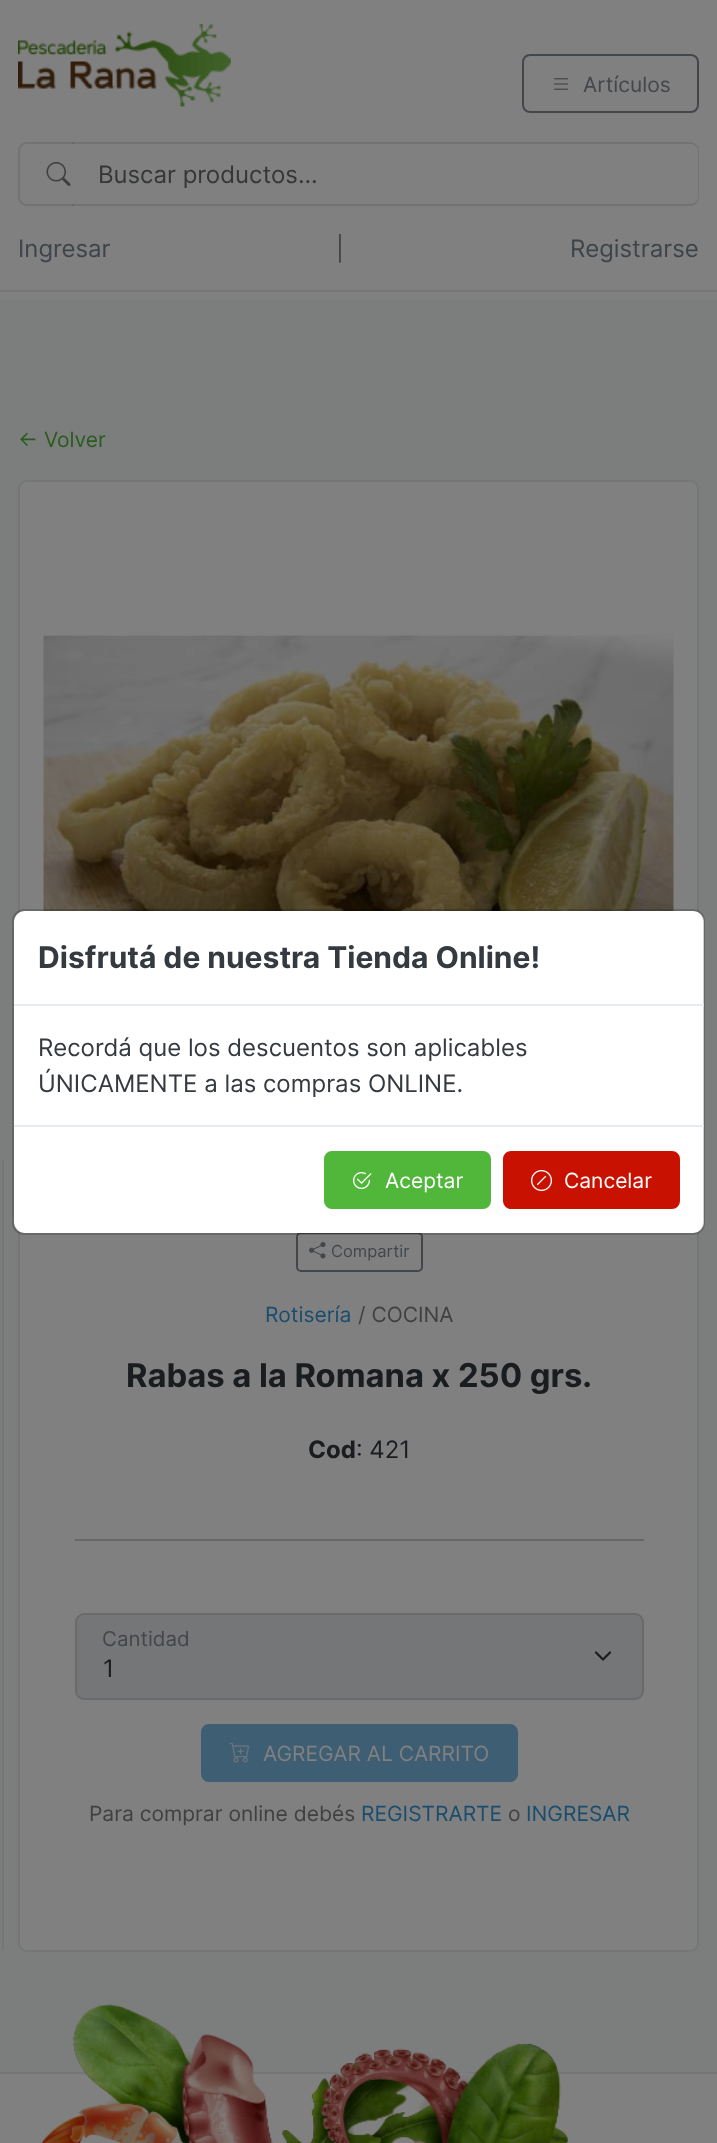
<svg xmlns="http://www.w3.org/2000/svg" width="717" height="2143">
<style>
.a{font:21px Inter;fill:#43474b}
.b{font:24px Inter;fill:#343638}
.c{font:24px Inter;fill:#3d444a}
.d{font:24px Inter;fill:#404040}
.e{font:21px Inter;fill:#295c1e}
.f{font:16.5px Inter;fill:#43474b}
.g{font:21px Inter;fill:#1a4c6e}
.h{font:21px Inter;fill:#404040}
.i{font:bold 32.75px Inter;fill:#1a1d20}
.j{font:bold 24px Inter;fill:#1a1d20}
.k{font:24px Inter;fill:#1a1d20}
.l{font:20.5px Inter;fill:#43474b}
.m{font:21px Inter;fill:#808080}
.n{font:bold 30px Inter;fill:#343a40}
.o{font:24px Inter;fill:#343a40}
.p{font:21px Inter;fill:#fff}
</style>
<rect width="100%" height="100%" fill="#808080"/>
<path fill="#757678" d="M0 290h717v2H0z"/>
<image href="1.png" x="18" y="24" width="213" height="83"/>
<rect fill="none" stroke="#43474b" stroke-width="2" x="523" y="55" width="175" height="57" rx="7"/>
<image href="2.png" x="553" y="78" width="16" height="12"/>
<path fill="#737373" fill-rule="evenodd" d="M27 142h47v64h-47c-5 0-9-4-9-9v-46c0-5 4-9 9-9zm0 2h47v60h-47c-4 0-7-3-7-7v-46c0-4 3-7 7-7z"/>
<image href="3.png" x="46" y="162" width="25" height="24"/>
<path fill="#0000001a" fill-rule="evenodd" d="M72 142h618c5 0 9 4 9 9v46c0 5-4 9-9 9h-618zm0 2h618c4 0 8 3 8 7v46c0 4-4 7-8 7h-618z"/>
<path fill="#7c7d7d" d="M0 300h717v1772H0z"/>
<rect fill="#808080" stroke="#757678" stroke-width="2" x="19" y="481" width="679" height="1470" rx="8"/>
<image href="4.png" x="43" y="634" width="631" height="277"/>
<path fill="#757678" d="M2 1160h2v790H2z"/>
<rect fill="none" stroke="#43474b" stroke-width="2" x="297" y="1233" width="125" height="38" rx="4"/>
<image href="5.png" x="309" y="1242" width="17" height="17"/>
<path fill="#666768" d="M75 1539h569v2H75z"/>
<rect fill="#757678" x="75" y="1613" width="569" height="87" rx="9"/>
<path fill="none" stroke="#1a1d20" stroke-width="2.2" stroke-linecap="round" stroke-linejoin="round" d="M596 1652.5l7 7l7-7"/>
<rect fill="none" stroke="#0000001a" stroke-width="2" x="76" y="1614" width="567" height="85" rx="8"/>
<rect fill="#3e5e74" stroke="#3e5e74" stroke-width="2" x="202" y="1725" width="315" height="56" rx="7"/>
<image href="6.png" x="229" y="1742" width="21" height="21"/>
<rect fill="#fff" x="14" y="911" width="690" height="322" rx="11"/>
<rect fill="none" stroke="#0000002e" stroke-width="2" x="13" y="910" width="691" height="324" rx="11"/>
<path fill="#e9ecef" d="M14 1004h690v2H14z"/>
<path fill="#e9ecef" d="M14 1125h690v2H14z"/>
<rect fill="#51b73b" stroke="#51b73b" stroke-width="2" x="325" y="1152" width="165" height="56" rx="7"/>
<image href="7.png" x="353" y="1172" width="19" height="17"/>
<rect fill="#c91100" stroke="#c91100" stroke-width="2" x="504" y="1152" width="175" height="56" rx="7"/>
<image href="8.png" x="531" y="1170" width="21" height="21"/>
<path fill="#757678" d="M0 2072h717v2H0z"/>
<image href="9.png" x="41" y="2004" width="527" height="139"/>
<text class="a" x="583" y="92">Artículos</text>
<text class="b" x="98" y="183">Buscar productos...</text>
<text class="c" x="18" y="257">Ingresar</text>
<text class="d" x="336" y="257">|</text>
<text class="c" x="570" y="257">Registrarse</text>
<text class="e" x="18" y="447">← Volver</text>
<text class="f" x="331" y="1257">Compartir</text>
<text class="g" x="265" y="1322">Rotisería</text>
<text class="h" x="358" y="1322">/ COCINA</text>
<text class="i" x="126" y="1387">Rabas a la Romana x 250 grs.</text>
<text class="j" x="308" y="1458">Cod</text>
<text class="k" x="356" y="1458">: 421</text>
<text class="l" x="102" y="1646">Cantidad</text>
<text class="k" x="103" y="1677">1</text>
<text class="m" x="263" y="1761">AGREGAR AL CARRITO</text>
<text class="h" x="89" y="1821">Para comprar online debés</text>
<text class="g" x="361" y="1821">REGISTRARTE</text>
<text class="h" x="508" y="1821">o</text>
<text class="g" x="526" y="1821">INGRESAR</text>
<text class="n" x="38" y="968">Disfrutá de nuestra Tienda Online!</text>
<text class="o" x="38" y="1056">Recordá que los descuentos son aplicables</text>
<text class="o" x="38" y="1092">ÚNICAMENTE a las compras ONLINE.</text>
<text class="p" x="385" y="1188">Aceptar</text>
<text class="p" x="564" y="1188">Cancelar</text>
</svg>
